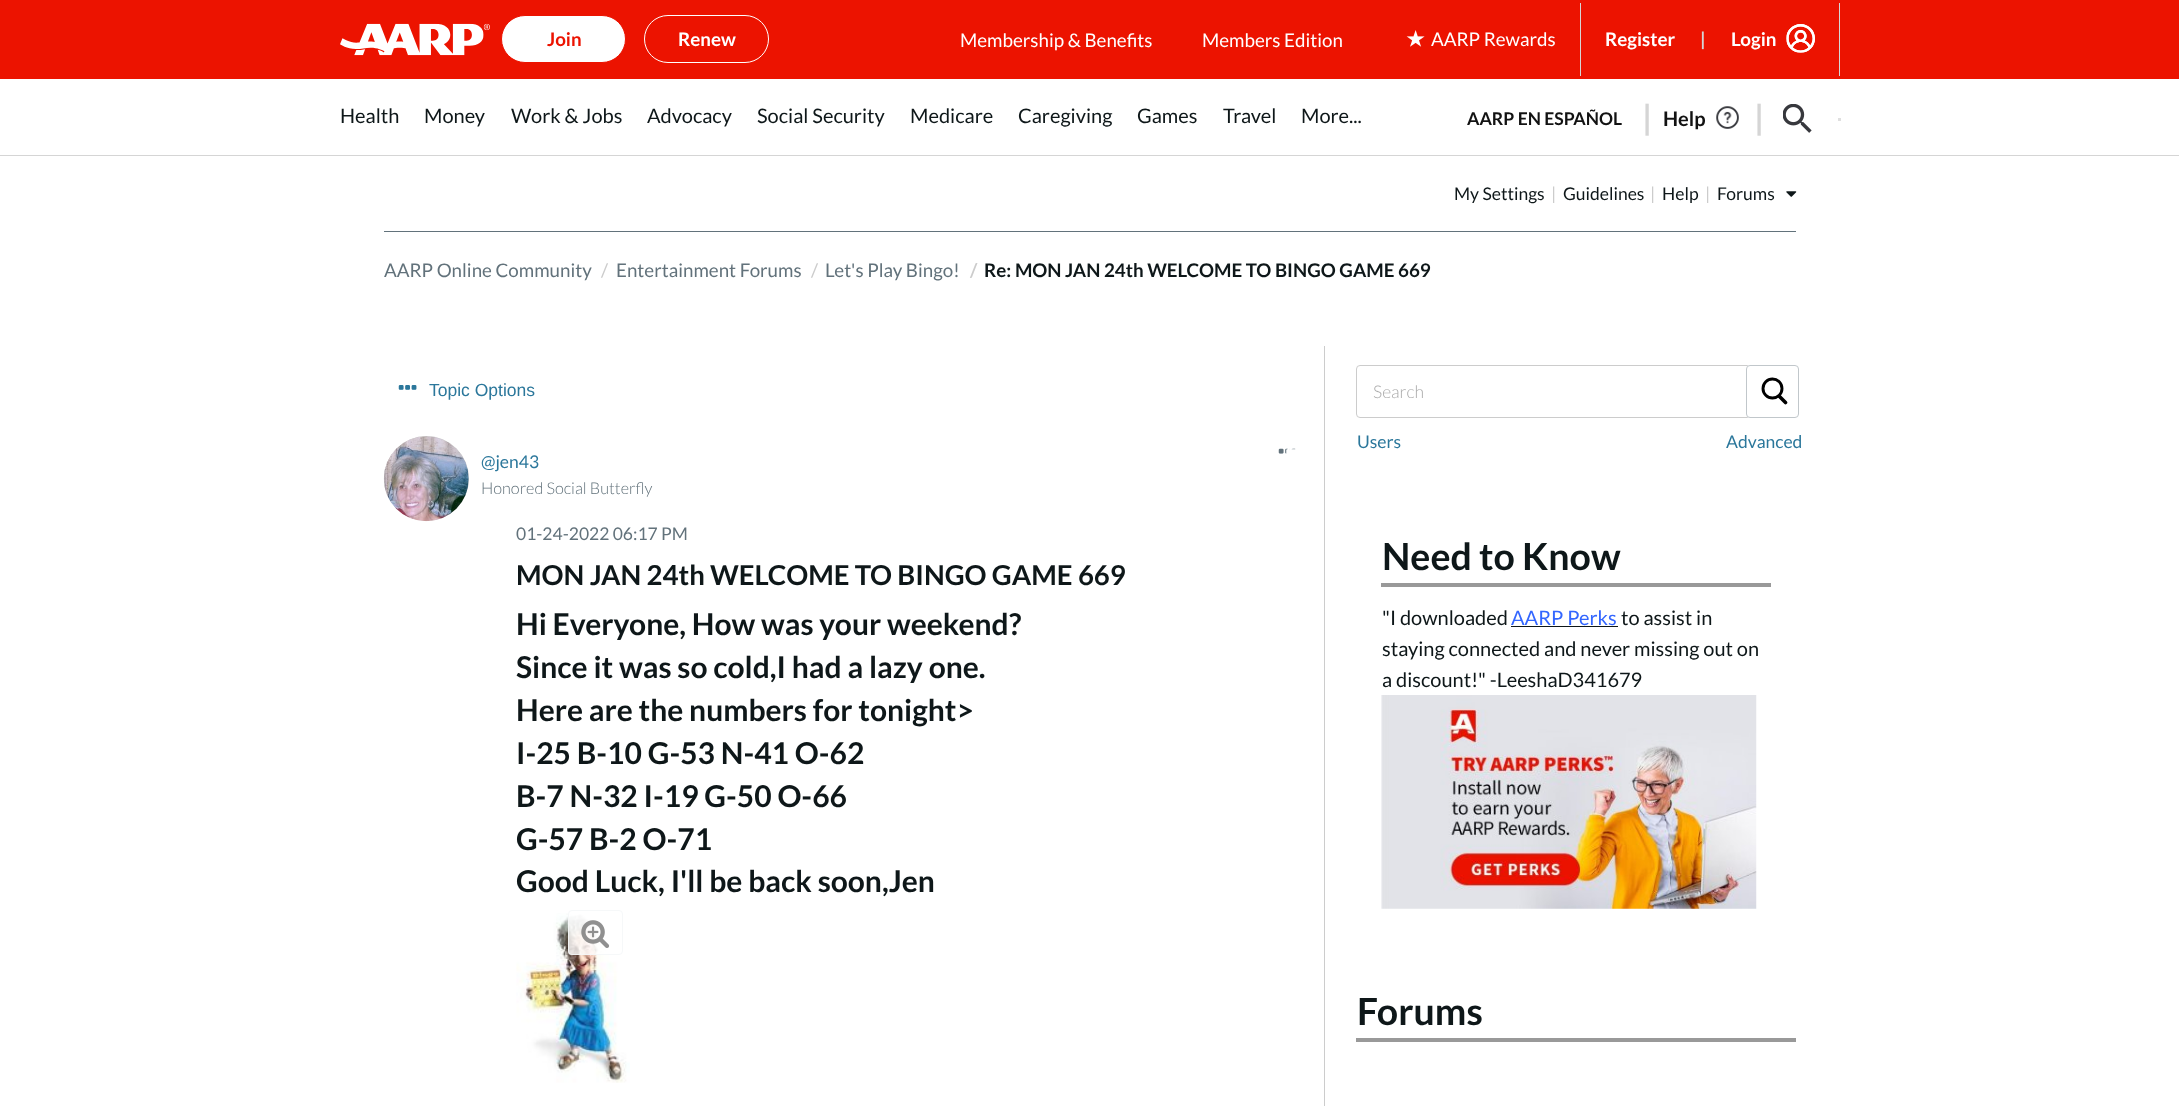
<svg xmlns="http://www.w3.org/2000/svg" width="2179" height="1106">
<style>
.a{font:bold 18.75px Lato;fill:#ec1300}
.b{font:bold 18.75px Lato;fill:#fff}
.c{font:18.75px Lato;fill:#fff}
.d{font:bold 18.75px Lato;fill:#d5d5d5}
.e{font:20px Lato;fill:#0e1719}
.f{font:bold 17.5px Lato;fill:#121212}
.g{font:bold 34px Lato;letter-spacing:-4px;fill:#d5d5d5}
.h{font:bold 20px Lato;fill:#121212}
.i{font:17.5px Lato;fill:#0e1719}
.j{font:17.5px Lato;fill:#ccc}
.k{font:18.75px Lato;fill:#62727b}
.l{font:18.75px Lato;fill:#ccc}
.m{font:bold 18.75px Lato;fill:#ccc}
.n{font:bold 18.75px Lato;fill:#0e1719}
.o{font:17.5px Liberation Sans;fill:#2b779b}
.p{font:17.5px Lato;fill:#2b779b}
.q{font:300 16.25px Lato;fill:#62727b}
.r{font:17.5px Lato;fill:#62727b}
.s{font:bold 27.5px Lato;fill:#0e1719}
.t{font:bold 30px Lato;fill:#0e1719}
.u{font:300 17.5px Lato;fill:#a9a9a9}
.v{font:bold 37.5px Lato;fill:#0e1719}
.w{font:20px Lato;fill:#36f}
</style>
<rect width="100%" height="100%" fill="#fff"/>
<path fill="#ec1300" d="M0 0h2179v79H0z"/>
<image href="1.png" x="340" y="23" width="150" height="33"/>
<rect fill="#fff" stroke="#ec1300" x="501.5" y="15.5" width="124" height="47" rx="23.5"/>
<rect fill="none" stroke="#fff" x="644.5" y="15.5" width="124" height="47" rx="23.5"/>
<path fill="#d5d5d5" d="M1580 3h1v73H1580z"/>
<image href="2.png" x="1406" y="30" width="19" height="17"/>
<path fill="#d5d5d5" d="M1839 3h1v73H1839z"/>
<image href="3.png" x="1786" y="24" width="29" height="29"/>
<path fill="#d5d5d5" d="M0 155h2179v1H0z"/>
<image href="4.png" x="1716" y="106" width="23" height="23"/>
<image href="5.png" x="1783" y="104" width="29" height="29"/>
<path fill="#dfdfdf" d="M1838 118h3v3H1838z"/>
<image href="6.png" x="1786" y="191" width="11" height="6"/>
<path fill="#62727b" d="M384 231h1412v1H384z"/>
<path fill="#ccc" d="M1324 346h1v760H1324z"/>
<image href="7.png" x="398" y="385" width="19" height="5"/>
<image href="10.png" x="1278" y="448" width="18" height="6"/>
<image href="8.png" x="1286" y="448" width="11" height="6"/>
<rect fill="#ccc" filter="blur(0.5px)" x="384" y="436" width="85" height="85" rx="42.5"/>
<image href="9.png" x="383" y="436" width="86" height="86"/>
<image href="12.png" x="516" y="913" width="114" height="170"/>
<rect fill="#ffffffcc" x="568" y="910" width="55" height="45" rx="4"/>
<rect fill="none" stroke="#f4f6f7cc" x="568.5" y="910.5" width="54" height="44" rx="3.5"/>
<image href="11.png" x="581" y="920" width="29" height="28"/>
<rect fill="none" stroke="#ccc" x="1356.5" y="365.5" width="439" height="52" rx="3.5"/>
<rect fill="#fff" x="1746" y="365" width="53" height="53" rx="4"/>
<circle fill="none" stroke="#000" stroke-width="2.9" cx="1772.5" cy="388.5" r="9.5"/>
<path fill="none" stroke="#000" stroke-width="3.6" stroke-linecap="round" d="M1779.5 396.5l6 6"/>
<rect fill="none" stroke="#c1c7cb" x="1746.5" y="365.5" width="52" height="52" rx="3.5"/>
<path fill="#999" d="M1381 583h390v4H1381z"/>
<path fill="#0e1719" d="M1511 626h107v1H1511z"/>
<image href="13.png" x="1381" y="695" width="376" height="214"/>
<path fill="#999" d="M1356 1038h440v4H1356z"/>
<text class="a" x="547" y="46">Join</text>
<text class="b" x="678" y="46">Renew</text>
<text class="c" x="960" y="47">Membership &amp; Benefits</text>
<text class="c" x="1202" y="47">Members Edition</text>
<text class="c" x="1431" y="46">AARP Rewards</text>
<text class="b" x="1605" y="46">Register</text>
<text class="d" x="1700" y="46">|</text>
<text class="b" x="1731" y="46">Login</text>
<text class="e" x="340" y="123">Health</text>
<text class="e" x="424" y="123">Money</text>
<text class="e" x="511" y="123">Work &amp; Jobs</text>
<text class="e" x="647" y="123">Advocacy</text>
<text class="e" x="757" y="123">Social Security</text>
<text class="e" x="910" y="123">Medicare</text>
<text class="e" x="1018" y="123">Caregiving</text>
<text class="e" x="1137" y="123">Games</text>
<text class="e" x="1223" y="123">Travel</text>
<text class="e" x="1301" y="123">More...</text>
<text class="f" x="1467" y="125">AARP EN ESPAÑOL</text>
<text class="g" x="1642" y="130">|</text>
<text class="h" x="1663" y="126">Help</text>
<text class="g" x="1754" y="130">|</text>
<text class="i" x="1454" y="200">My Settings</text>
<text class="j" x="1551" y="200">|</text>
<text class="i" x="1563" y="200">Guidelines</text>
<text class="j" x="1650" y="200">|</text>
<text class="i" x="1662" y="200">Help</text>
<text class="j" x="1705" y="200">|</text>
<text class="i" x="1717" y="200">Forums</text>
<text class="k" x="384" y="277">AARP Online Community</text>
<text class="l" x="601" y="277">/</text>
<text class="k" x="616" y="277">Entertainment Forums</text>
<text class="l" x="811" y="277">/</text>
<text class="k" x="825" y="277">Let's Play Bingo!</text>
<text class="m" x="970" y="277">/</text>
<text class="n" x="984" y="277">Re: MON JAN 24th WELCOME TO BINGO GAME 669</text>
<text class="o" x="429" y="396">Topic Options</text>
<text class="p" x="481" y="468">@jen43</text>
<text class="q" x="481" y="494">Honored Social Butterfly</text>
<text class="r" x="516" y="540">01-24-2022 06:17 PM</text>
<text class="s" x="516" y="585">MON JAN 24th WELCOME TO BINGO GAME 669</text>
<text class="t" x="516" y="635">Hi Everyone, How was your weekend?</text>
<text class="t" x="516" y="678">Since it was so cold,I had a lazy one.</text>
<text class="t" x="516" y="721">Here are the numbers for tonight&gt;</text>
<text class="t" x="516" y="764">I-25 B-10 G-53 N-41 O-62</text>
<text class="t" x="516" y="807">B-7 N-32 I-19 G-50 O-66</text>
<text class="t" x="516" y="850">G-57 B-2 O-71</text>
<text class="t" x="516" y="892">Good Luck, I'll be back soon,Jen</text>
<text class="u" x="1373" y="398">Search</text>
<text class="p" x="1357" y="448">Users</text>
<text class="p" x="1726" y="448">Advanced</text>
<text class="v" x="1382" y="570">Need to Know</text>
<text class="e" x="1382" y="625">"I downloaded</text>
<text class="w" x="1511" y="625">AARP Perks</text>
<text class="e" x="1621" y="625">to assist in</text>
<text class="e" x="1382" y="656">staying connected and never missing out on</text>
<text class="e" x="1382" y="687">a discount!" -LeeshaD341679</text>
<text class="v" x="1357" y="1025">Forums</text>
</svg>
